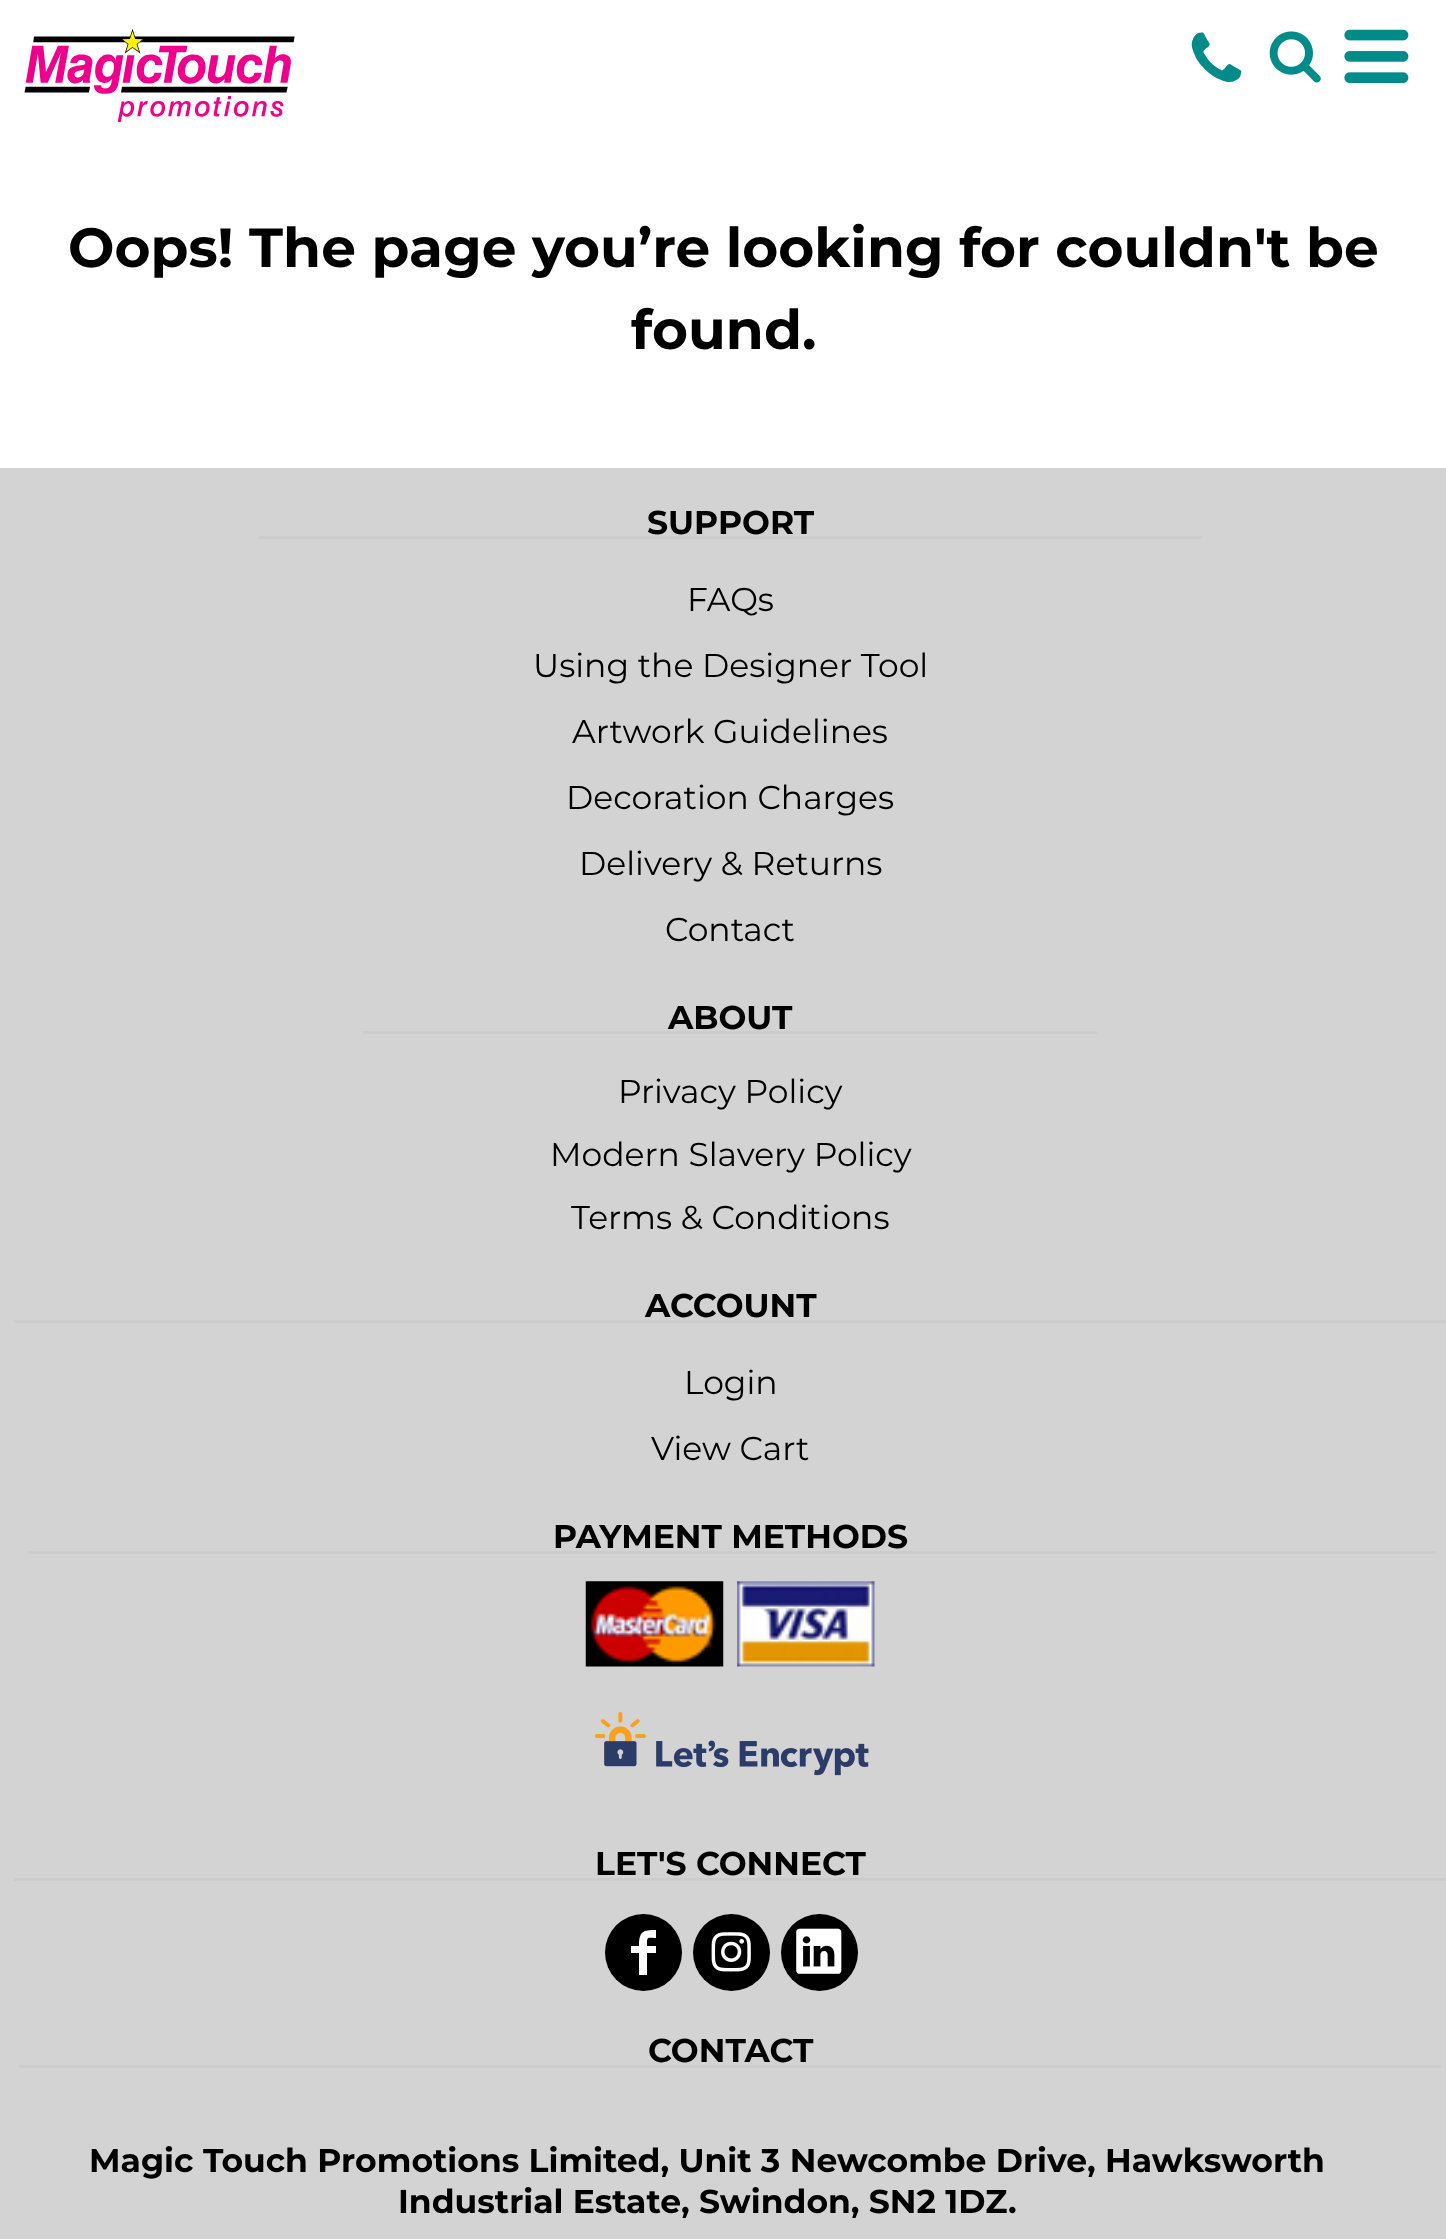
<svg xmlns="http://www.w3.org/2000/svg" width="1446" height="2239">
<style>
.a{font:63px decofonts;fill:#008b8b}
.b{font:bold 55px Montserrat;fill:#000}
.c{font:bold 33px Montserrat;fill:#000}
.d{font:33px Montserrat;fill:#000}
.e{font:50px decofonts;fill:#fff}
</style>
<rect width="100%" height="100%" fill="#fff"/>
<image href="1.png" x="24" y="29" width="271" height="93"/>
<image href="2.png" x="1269" y="31" width="52" height="52"/>
<image href="3.png" x="1344" y="29" width="65" height="54"/>
<path fill="#d3d3d3" d="M0 468h1446v1771H0z"/>
<path fill="#ccc" d="M259 536h943v3H259z"/>
<path fill="#ccc" d="M363 1031h734v3H363z"/>
<path fill="#ccc" d="M14 1320h1432v3H14z"/>
<path fill="#ccc" d="M28 1551h1408v3H28z"/>
<image href="4.png" x="585" y="1581" width="139" height="86"/>
<image href="5.png" x="737" y="1581" width="138" height="86"/>
<image href="6.png" x="594" y="1712" width="275" height="64"/>
<path fill="#ccc" d="M14 1878h1432v3H14z"/>
<circle fill="#000" cx="643.5" cy="1952.5" r="38.5"/>
<path fill="#fff" d="M656 1938c-9 0-9-2-9 8h9v7h-9v22h-8v-22h-8v-7h8c0-15 4-16 17-16z"/>
<circle fill="#000" cx="731.5" cy="1952.5" r="38.5"/>
<image href="7.png" x="711" y="1932" width="40" height="40"/>
<circle fill="#000" cx="819.5" cy="1952.5" r="38.5"/>
<path fill="#ccc" d="M19 2065h1422v3H19z"/>
<text class="a" x="1185" y="91">;</text>
<text class="b" x="68" y="267">Oops! The page you’re looking for couldn't be</text>
<text class="b" x="631" y="349">found.</text>
<text class="c" x="647" y="534">SUPPORT</text>
<text class="d" x="687" y="611">FAQs</text>
<text class="d" x="533" y="677">Using the Designer Tool</text>
<text class="d" x="572" y="743">Artwork Guidelines</text>
<text class="d" x="566" y="809">Decoration Charges</text>
<text class="d" x="579" y="875">Delivery &amp; Returns</text>
<text class="d" x="665" y="941">Contact</text>
<text class="c" x="668" y="1029">ABOUT</text>
<text class="d" x="618" y="1103">Privacy Policy</text>
<text class="d" x="550" y="1166">Modern Slavery Policy</text>
<text class="d" x="571" y="1229">Terms &amp; Conditions</text>
<text class="c" x="645" y="1317">ACCOUNT</text>
<text class="d" x="684" y="1394">Login</text>
<text class="d" x="651" y="1460">View Cart</text>
<text class="c" x="553" y="1548">PAYMENT METHODS</text>
<text class="c" x="595" y="1875">LET'S CONNECT</text>
<text class="e" x="794" y="1976">?</text>
<text class="c" x="648" y="2062">CONTACT</text>
<text class="c" x="89" y="2172">Magic Touch Promotions Limited, Unit 3 Newcombe Drive, Hawksworth</text>
<text class="c" x="398" y="2213">Industrial Estate, Swindon, SN2 1DZ.</text>
</svg>
